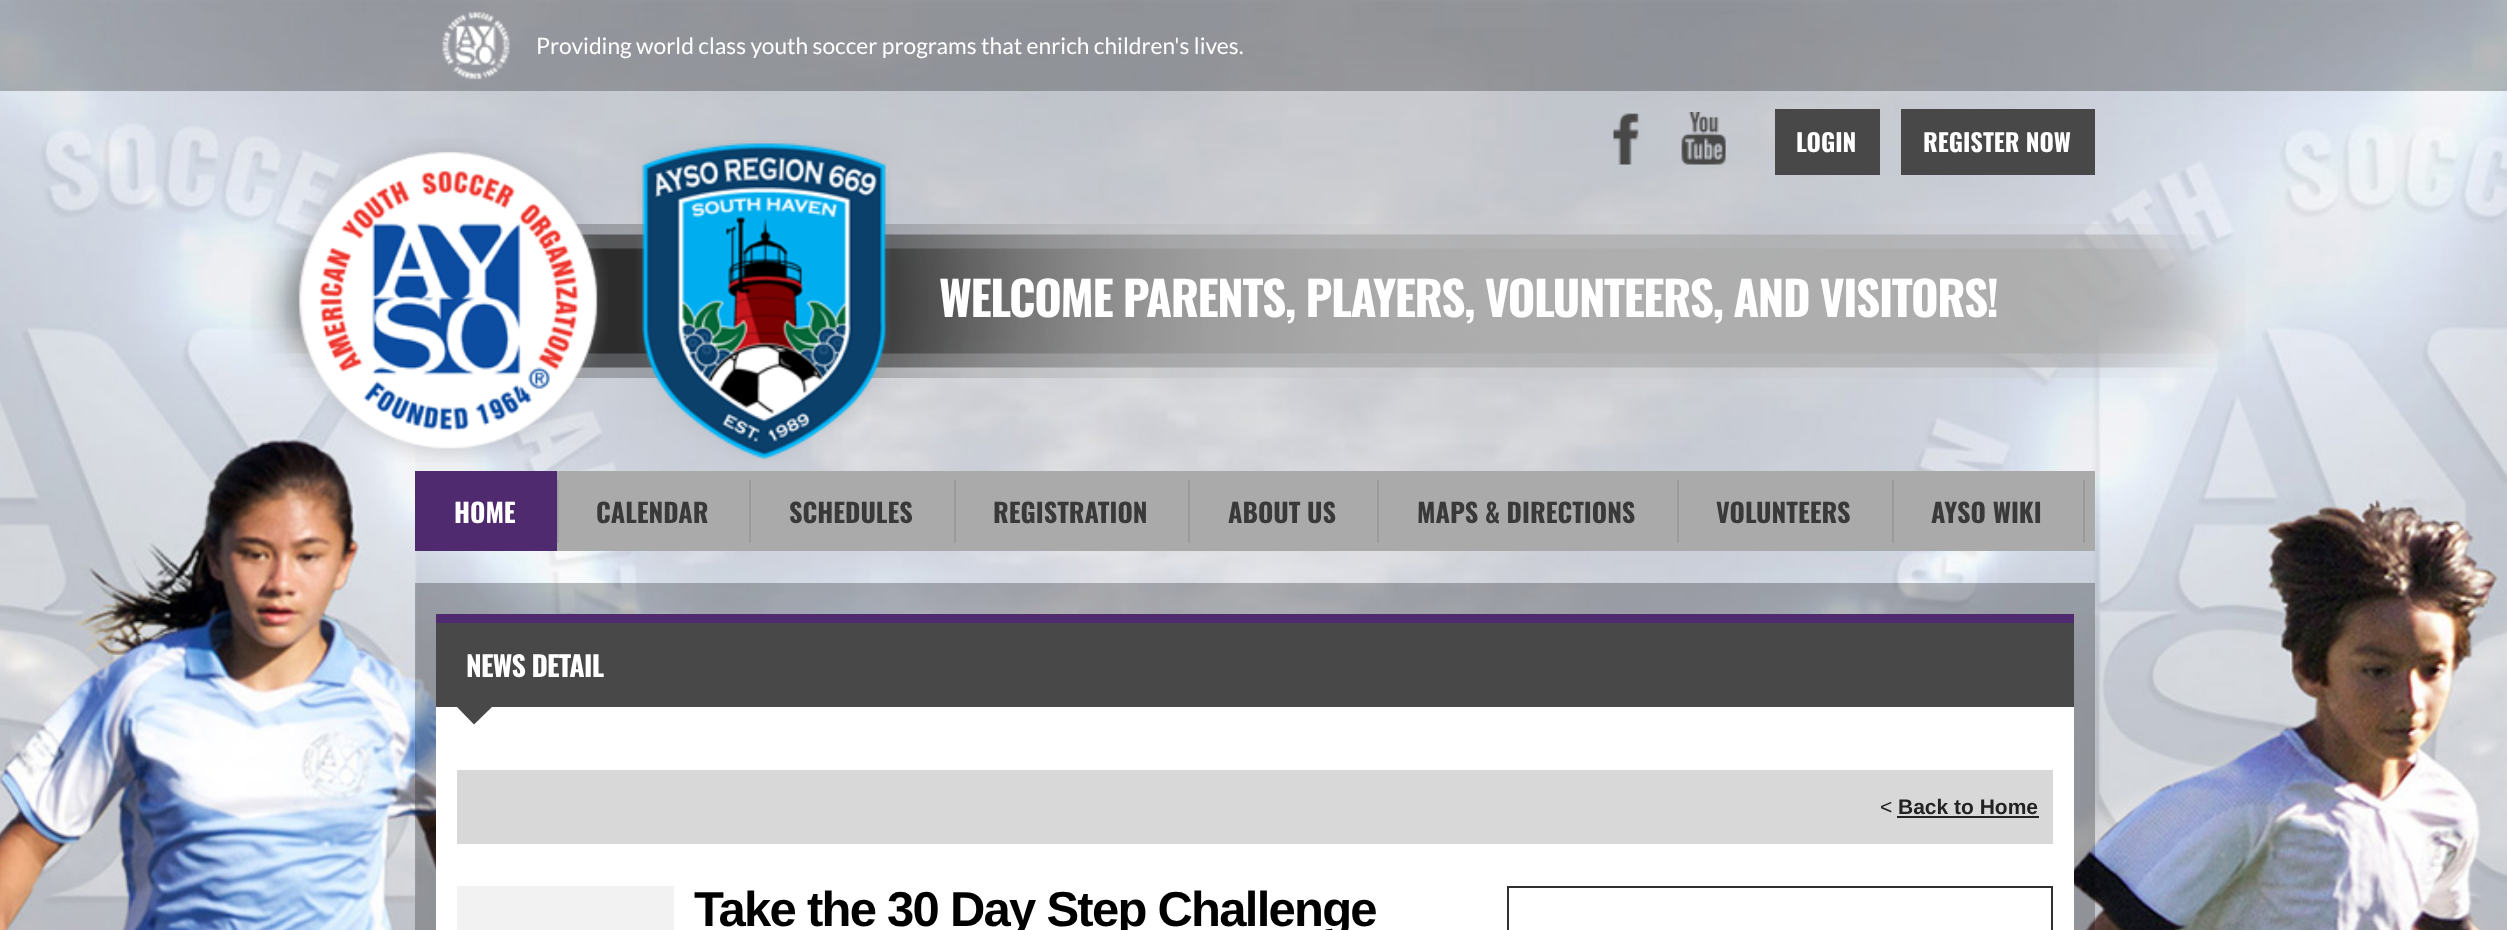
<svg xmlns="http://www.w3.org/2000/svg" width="2507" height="930">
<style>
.a{font:22.75px Lato;fill:#fff}
.b{font:bold 24.5px Oswald;fill:#fff}
.c{font:bold 47.25px Oswald;letter-spacing:-1.42px;fill:#fff}
.d{font:bold 26.25px Oswald;fill:#fff}
.e{font:bold 26.25px Oswald;fill:#393939}
.f{font:bold 28px Oswald;letter-spacing:-0.75px;fill:#fff}
.g{font:21px Liberation Sans;fill:#222}
.h{font:bold 21px Liberation Sans;fill:#222}
.i{font:bold 49px Liberation Sans;letter-spacing:-1.75px;fill:#000}
</style>
<rect width="100%" height="100%" fill="#fff"/>
<image href="1.png" x="0" y="0" width="2507" height="930"/>
<path fill="#00000040" d="M0 0h2507v91H0z"/>
<image href="2.png" x="442" y="11" width="68" height="69"/>
<image href="3.png" x="1613" y="113" width="26" height="52"/>
<image href="4.png" x="1681" y="112" width="45" height="53"/>
<path fill="#484848" d="M1775 109h105v66H1775z"/>
<path fill="#484848" d="M1901 109h194v66H1901z"/>
<image href="5.png" x="251" y="224" width="1995" height="154"/>
<image href="6.png" x="285" y="138" width="323" height="325"/>
<image href="7.png" x="636" y="140" width="255" height="320"/>
<path fill="#aaaaab" d="M557 471h1538v80H557z"/>
<path fill="#502a6f" d="M415 471h142v80H415z"/>
<path fill="#9b9b9b" d="M557 480h2v63H557z"/>
<path fill="#9b9b9b" d="M749 480h2v63H749z"/>
<path fill="#9b9b9b" d="M954 480h2v63H954z"/>
<path fill="#9b9b9b" d="M1188 480h2v63H1188z"/>
<path fill="#9b9b9b" d="M1377 480h2v63H1377z"/>
<path fill="#9b9b9b" d="M1677 480h2v63H1677z"/>
<path fill="#9b9b9b" d="M1892 480h2v63H1892z"/>
<path fill="#9b9b9b" d="M2083 480h2v63H2083z"/>
<path fill="#00000040" d="M415 583h1680v347H415z"/>
<path fill="#484848" d="M436 623h1638v84H436z"/>
<path fill="#502a6f" d="M436 614h1638v9H436z"/>
<path fill="#fff" d="M436 707h1638v223H436z"/>
<path fill="#484848" d="M457 707h35l-18 17.5z"/>
<path fill="#d8d8d8" d="M457 770h1596v74H457z"/>
<path fill="#222" d="M1897 816h142v2H1897z"/>
<path fill="#f2f2f2" d="M457 886h217v44H457z"/>
<path fill="none" stroke="#303030" stroke-width="2" d="M1508 887h544v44H1508z"/>
<text class="a" x="536" y="54">Providing world class youth soccer programs that enrich children's lives.</text>
<text class="b" x="1796" y="152">LOGIN</text>
<text class="b" x="1923" y="152">REGISTER NOW</text>
<text class="c" x="939" y="317">WELCOME PARENTS, PLAYERS, VOLUNTEERS, AND VISITORS!</text>
<text class="d" x="454" y="523">HOME</text>
<text class="e" x="596" y="523">CALENDAR</text>
<text class="e" x="789" y="523">SCHEDULES</text>
<text class="e" x="993" y="523">REGISTRATION</text>
<text class="e" x="1228" y="523">ABOUT US</text>
<text class="e" x="1417" y="523">MAPS &amp; DIRECTIONS</text>
<text class="e" x="1716" y="523">VOLUNTEERS</text>
<text class="e" x="1931" y="523">AYSO WIKI</text>
<text class="f" x="466" y="677">NEWS DETAIL</text>
<text class="g" x="1880" y="814">&lt;</text>
<text class="h" x="1898" y="814">Back to Home</text>
<text class="i" x="694" y="926">Take the 30 Day Step Challenge</text>
</svg>
